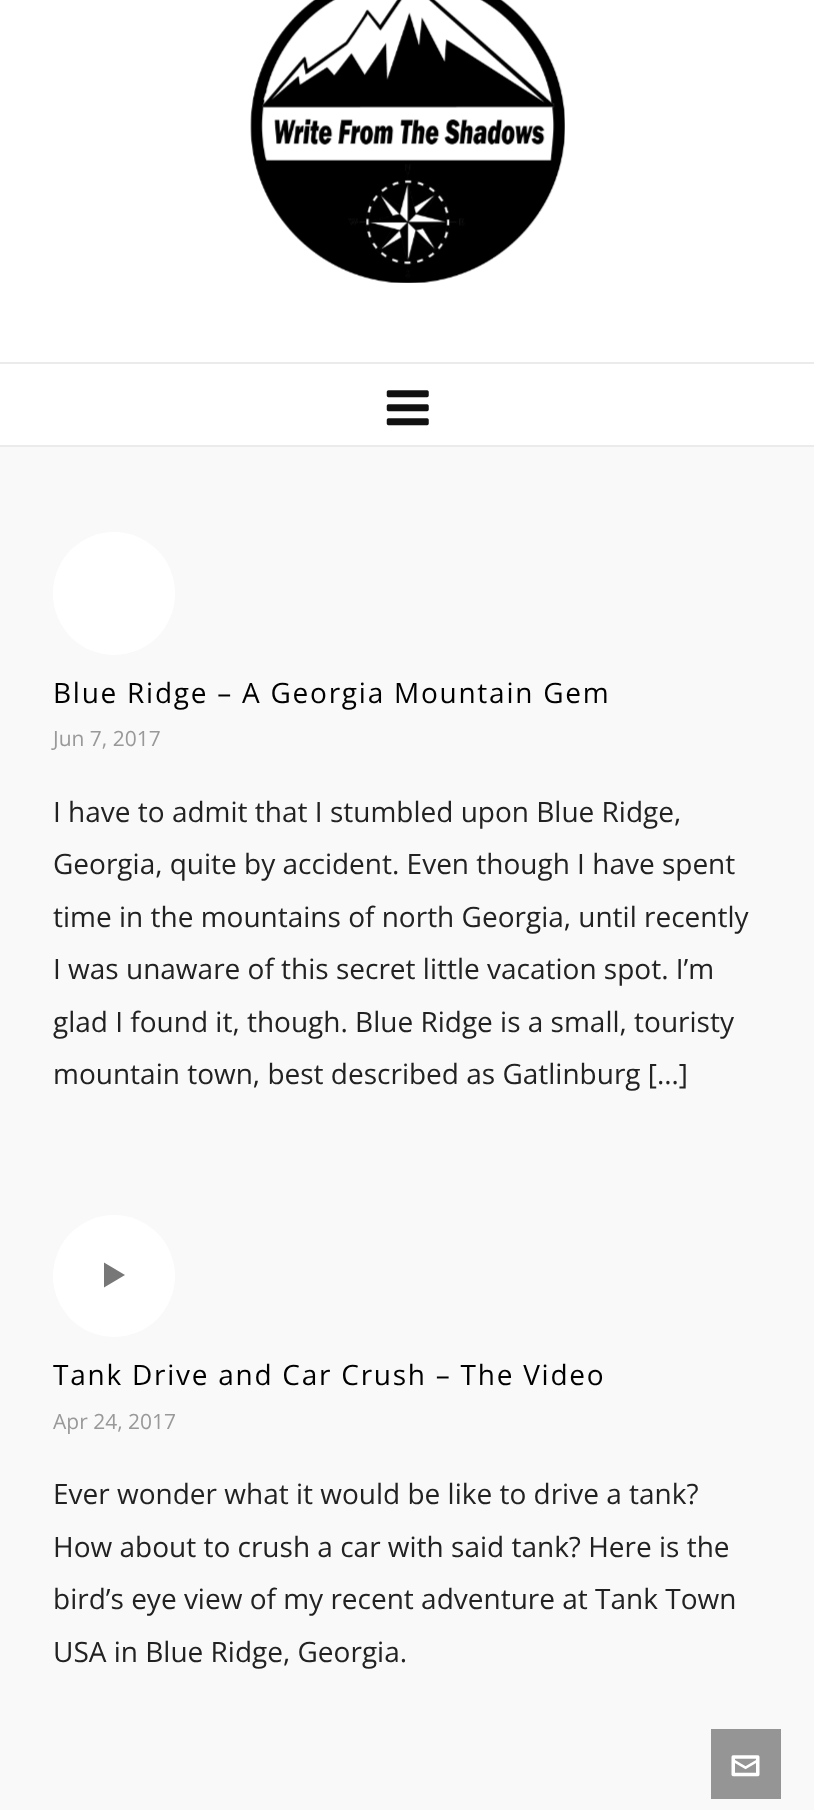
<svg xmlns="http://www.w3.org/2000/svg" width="814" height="1810">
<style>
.a{font:28px Open Sans;letter-spacing:1.75px;fill:#000}
.b{font:21px Open Sans;fill:#999}
.c{font:28px Open Sans;fill:#222}
</style>
<rect width="100%" height="100%" fill="#f9f9f9"/>
<path fill="#fff" d="M0 0h814v445H0z"/>
<path fill="#ebebeb" d="M0 445h814v2H0z"/>
<image href="1.png" x="250" y="0" width="315" height="283"/>
<path fill="#ebebeb" d="M0 362h814v2H0z"/>
<image href="2.png" x="386" y="390" width="43" height="36"/>
<rect fill="#fff" x="53" y="532" width="122" height="123" rx="61"/>
<circle fill="#fff" cx="114" cy="1276" r="61"/>
<path fill="#777" d="M104 1262.5v25l21-12.5z"/>
<path fill="#959595" d="M711 1729h70v70H711z"/>
<image href="3.png" x="731" y="1755" width="29" height="22"/>
<text class="a" x="53" y="703">Blue Ridge – A Georgia Mountain Gem</text>
<text class="b" x="53" y="746">Jun 7, 2017</text>
<text class="c" x="53" y="822">I have to admit that I stumbled upon Blue Ridge,</text>
<text class="c" x="53" y="874">Georgia, quite by accident. Even though I have spent</text>
<text class="c" x="53" y="927">time in the mountains of north Georgia, until recently</text>
<text class="c" x="53" y="979">I was unaware of this secret little vacation spot. I’m</text>
<text class="c" x="53" y="1032">glad I found it, though. Blue Ridge is a small, touristy</text>
<text class="c" x="53" y="1084">mountain town, best described as Gatlinburg […]</text>
<text class="a" x="53" y="1385">Tank Drive and Car Crush – The Video</text>
<text class="b" x="53" y="1429">Apr 24, 2017</text>
<text class="c" x="53" y="1504">Ever wonder what it would be like to drive a tank?</text>
<text class="c" x="53" y="1557">How about to crush a car with said tank? Here is the</text>
<text class="c" x="53" y="1609">bird’s eye view of my recent adventure at Tank Town</text>
<text class="c" x="53" y="1662">USA in Blue Ridge, Georgia.</text>
</svg>
